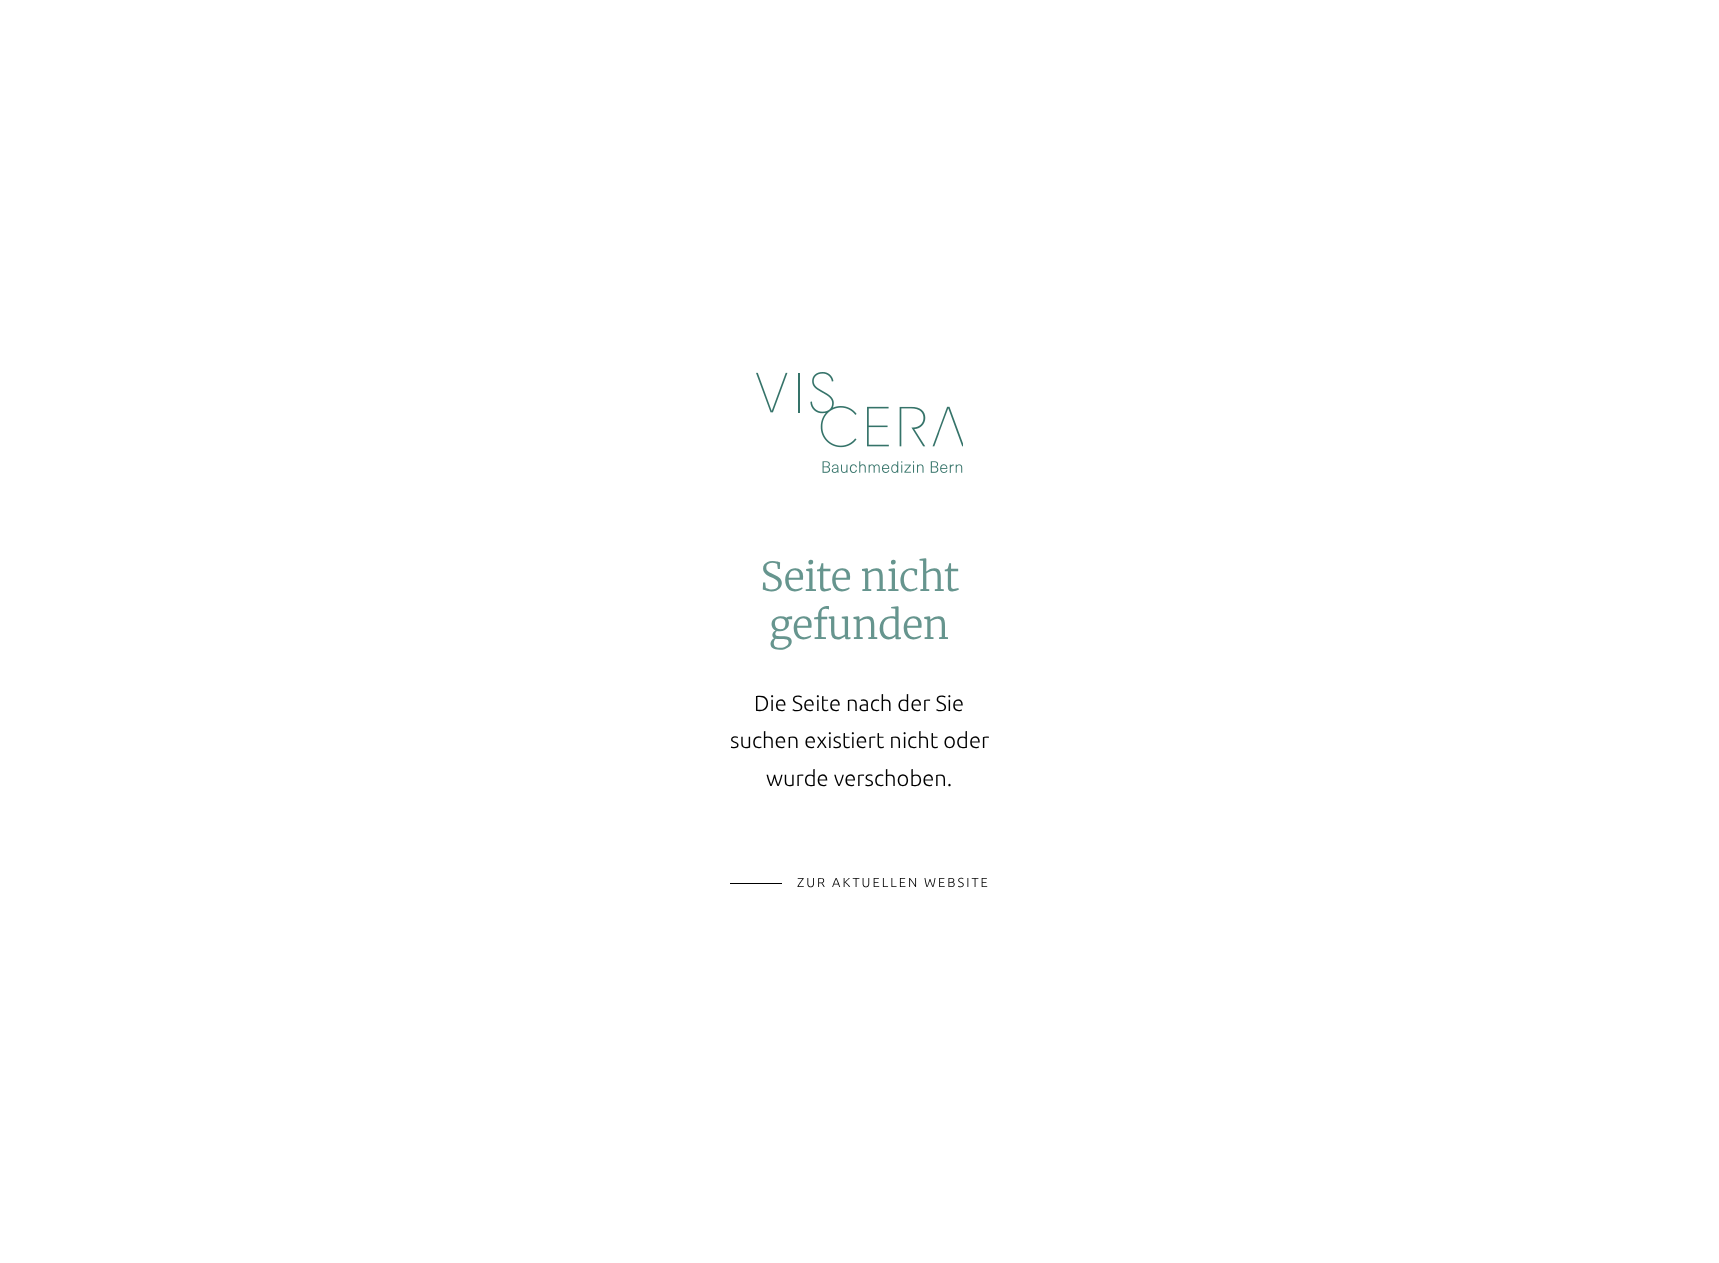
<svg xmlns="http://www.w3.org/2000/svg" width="1719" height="1263">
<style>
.a{font:300 40px Merriweather;fill:#66958e}
.b{font:300 22px Ubuntu;fill:#000}
.c{font:300 13px Ubuntu;letter-spacing:2px;fill:#000}
</style>
<rect width="100%" height="100%" fill="#fff"/>
<image href="1.png" x="756" y="372" width="207" height="101"/>
<path fill="#000" d="M730 883h52v1H730z"/>
<text class="a" x="760" y="591">Seite nicht</text>
<text class="a" x="769" y="639">gefunden</text>
<text class="b" x="754" y="711">Die Seite nach der Sie</text>
<text class="b" x="730" y="748">suchen existiert nicht oder</text>
<text class="b" x="766" y="786">wurde verschoben.</text>
<text class="c" x="797" y="887">ZUR AKTUELLEN WEBSITE</text>
</svg>
